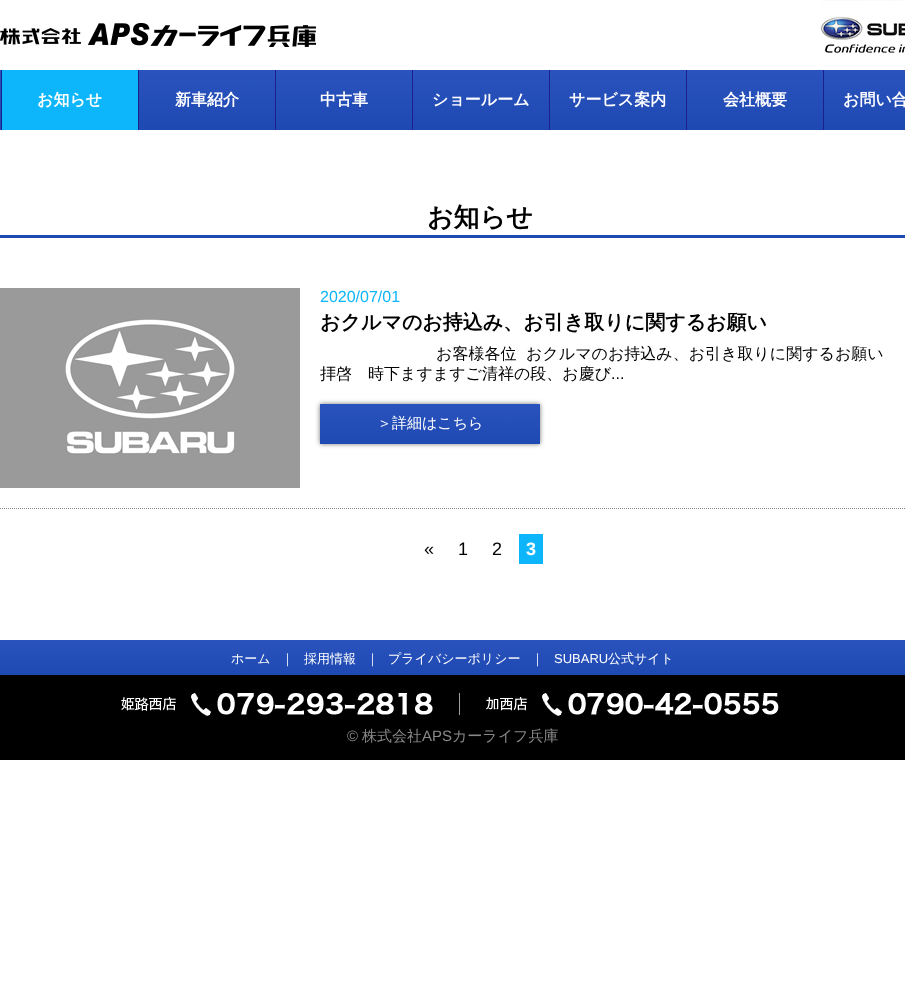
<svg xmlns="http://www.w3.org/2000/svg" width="905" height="1006">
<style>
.a{font:bold 16px WenQuanYi Zen Hei;fill:#fff}
.b{font:bold 26px WenQuanYi Zen Hei;fill:#000}
.c{font:16px Liberation Sans;fill:#0db6fb}
.d{font:bold 20px WenQuanYi Zen Hei;fill:#000}
.e{font:500 16px WenQuanYi Zen Hei;fill:#000}
.f{font:16px Liberation Sans;fill:#000}
.g{font:500 15px WenQuanYi Zen Hei;fill:#fff}
.h{font:18px Liberation Sans;fill:#000}
.i{font:bold 18px Liberation Sans;fill:#fff}
.j{font:500 13px WenQuanYi Zen Hei;fill:#fff}
.k{font:13px Liberation Sans;fill:#fff}
.l{font:15px Liberation Sans;fill:#898989}
.m{font:500 15px WenQuanYi Zen Hei;fill:#898989}
</style>
<defs>
<linearGradient id="g1" gradientUnits="userSpaceOnUse" x1="480" y1="130" x2="480" y2="70"><stop offset="0" stop-color="#1e48b2"/><stop offset="1" stop-color="#2a53bd"/></linearGradient>
<linearGradient id="g2" gradientUnits="userSpaceOnUse" x1="430" y1="444" x2="430" y2="404"><stop offset="0" stop-color="#1e48b2"/><stop offset="1" stop-color="#2a53bd"/></linearGradient>
<linearGradient id="g3" gradientUnits="userSpaceOnUse" x1="453" y1="675" x2="453" y2="640"><stop offset="0" stop-color="#1e48b2"/><stop offset="1" stop-color="#2a53bd"/></linearGradient>
</defs>
<rect width="100%" height="100%" fill="#fff"/>
<image href="1.png" x="0" y="23" width="316" height="24"/>
<image href="2.png" x="820" y="0" width="85" height="54"/>
<path fill="url(#g1)" d="M0 70h905v60H0z"/>
<path fill="#0db6fb" d="M2 70h136v60H2z"/>
<path fill="#1d2088" d="M1 70h1v60H1z"/>
<path fill="#1d2088" d="M138 70h1v60H138z"/>
<path fill="#1d2088" d="M275 70h1v60H275z"/>
<path fill="#1d2088" d="M412 70h1v60H412z"/>
<path fill="#1d2088" d="M549 70h1v60H549z"/>
<path fill="#1d2088" d="M686 70h1v60H686z"/>
<path fill="#1d2088" d="M823 70h1v60H823z"/>
<path fill="#1e48b2" d="M0 235h905v3H0z"/>
<path fill="none" stroke="#898989" stroke-dasharray="1 1" d="M0 508.5h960"/>
<image href="3.png" x="0" y="288" width="300" height="200"/>
<path fill="#777" filter="blur(2.5px)" d="M320 404h220v40H320z"/>
<path fill="url(#g2)" d="M320 404h220v40H320z"/>
<path fill="#0db6fb" d="M519 534h24v30H519z"/>
<path fill="url(#g3)" d="M0 640h905v35H0z"/>
<path fill="#000" d="M0 675h905v85H0z"/>
<image href="4.png" x="121" y="693" width="658" height="23"/>
<text class="a" x="37" y="105">お知らせ</text>
<text class="a" x="175" y="105">新車紹介</text>
<text class="a" x="320" y="105">中古車</text>
<text class="a" x="432" y="105">ショールーム</text>
<text class="a" x="569" y="105">サービス案内</text>
<text class="a" x="723" y="105">会社概要</text>
<text class="a" x="843" y="105">お問い合</text>
<text class="b" x="427" y="226">お知らせ</text>
<text class="c" x="320" y="302">2020/07/01</text>
<text class="d" x="320" y="329">おクルマのお持込み、お引き取りに関するお願い</text>
<text class="e" x="436" y="359">お客様各位</text>
<text class="e" x="526" y="359">おクルマのお持込み、お引き取りに関するお願い</text>
<text class="e" x="320" y="379">拝啓　時下ますますご清祥の段、お慶び</text>
<text class="f" x="611" y="379">...</text>
<text class="g" x="377" y="428">＞詳細はこちら</text>
<text class="h" x="424" y="555">«</text>
<text class="h" x="458" y="555">1</text>
<text class="h" x="492" y="555">2</text>
<text class="i" x="526" y="555">3</text>
<text class="j" x="231" y="663">ホーム</text>
<text class="j" x="281" y="663">｜</text>
<text class="j" x="304" y="663">採用情報</text>
<text class="j" x="366" y="663">｜</text>
<text class="j" x="388" y="663">プライバシーポリシー</text>
<text class="j" x="531" y="663">｜</text>
<text class="k" x="554" y="663">SUBARU</text>
<text class="j" x="608" y="663">公式サイト</text>
<text class="l" x="347" y="741">©</text>
<text class="m" x="362" y="741">株式会社</text>
<text class="l" x="422" y="741">APS</text>
<text class="m" x="452" y="741">カーライフ兵庫</text>
</svg>
